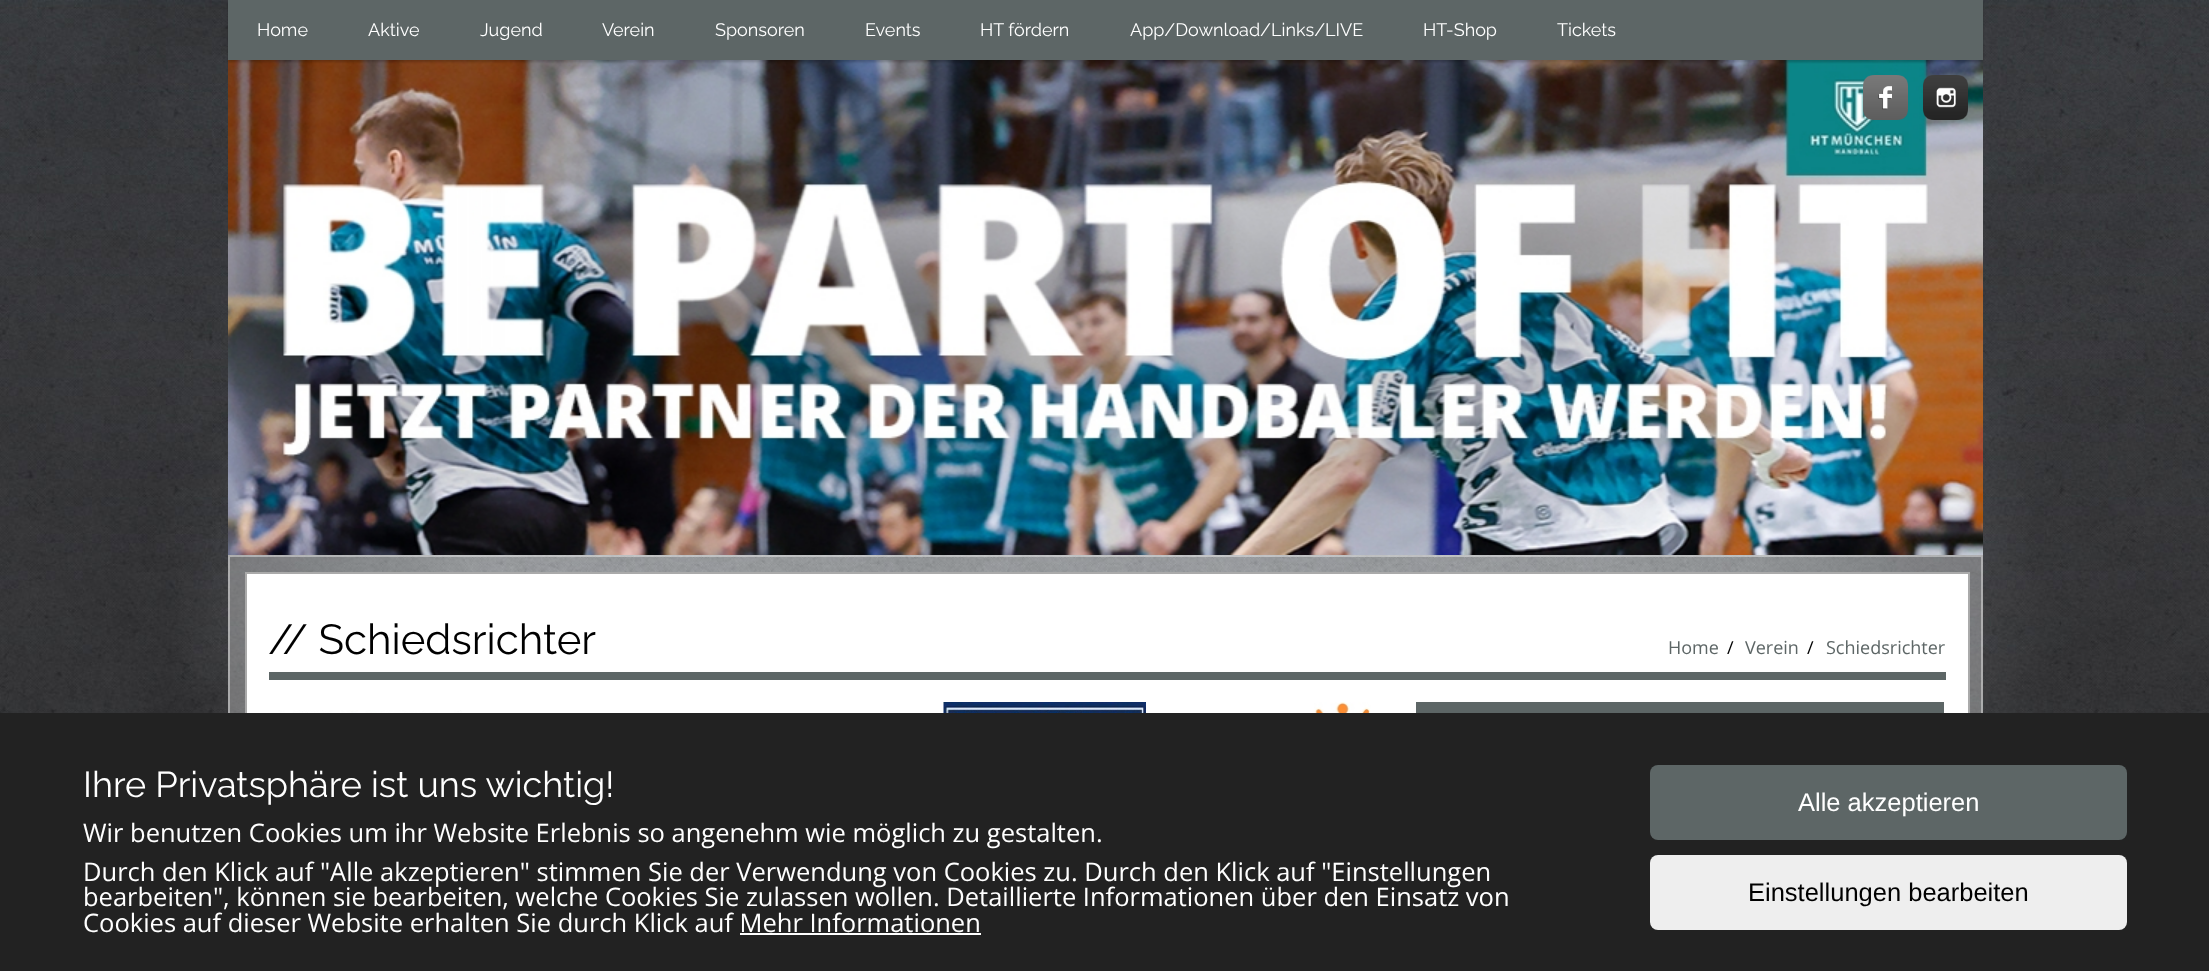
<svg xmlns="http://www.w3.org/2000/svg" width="2209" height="971">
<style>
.a{font:18px Raleway;fill:#fff}
.b{font:42px Raleway;fill:#000}
.c{font:18px Open Sans;fill:#5d6666}
.d{font:18px Open Sans;fill:#000}
.e{font:36px Raleway;fill:#fff}
.f{font:25.5px Open Sans;fill:#fff}
.g{font:25.5px Liberation Sans;fill:#fff}
.h{font:25.5px Liberation Sans;fill:#000}
</style>
<defs>
<clipPath id="clip1"><path d="M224 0h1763v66h-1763zm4 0h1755v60h-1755z" clip-rule="evenodd"/></clipPath>
</defs>
<rect width="100%" height="100%" fill="#fff"/>
<image href="1.png" x="0" y="0" width="2209" height="713"/>
<path fill="#5d6666" d="M228 0h1755v60H228z"/>
<image href="2.png" x="228" y="60" width="1755" height="495"/>
<g clip-path="url(#clip1)">
<path fill="#00000033" filter="blur(1px)" d="M228 2h1755v60H228z"/>
</g>
<image href="3.png" x="1863" y="75" width="45" height="45"/>
<image href="4.png" x="1923" y="75" width="45" height="45"/>
<path fill="#ffffff4d" d="M228 555h1755v158H228z"/>
<path fill="none" stroke="#ffffff66" stroke-width="2" d="M229 556h1753v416H229z"/>
<path fill="#fff" d="M247 574h1721v139H247z"/>
<path fill="none" stroke="#aaa" stroke-width="2" d="M246 573h1723v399H246z"/>
<path fill="#5d6666" d="M269 672h1677v8H269z"/>
<image href="5.png" x="278" y="710" width="184" height="3"/>
<image href="6.png" x="943" y="702" width="203" height="11"/>
<image href="7.png" x="1170" y="702" width="201" height="11"/>
<path fill="#5d6666" d="M1416 702h528v11H1416z"/>
<path fill="#222" d="M0 713h2209v258H0z"/>
<path fill="#fff" d="M740 933h241v2H740z"/>
<rect fill="#5d6666" x="1650" y="765" width="477" height="75" rx="8"/>
<rect fill="#eee" x="1650" y="855" width="477" height="75" rx="8"/>
<text class="a" x="257" y="36">Home</text>
<text class="a" x="368" y="36">Aktive</text>
<text class="a" x="480" y="36">Jugend</text>
<text class="a" x="602" y="36">Verein</text>
<text class="a" x="715" y="36">Sponsoren</text>
<text class="a" x="865" y="36">Events</text>
<text class="a" x="980" y="36">HT fördern</text>
<text class="a" x="1130" y="36">App/Download/Links/LIVE</text>
<text class="a" x="1423" y="36">HT-Shop</text>
<text class="a" x="1557" y="36">Tickets</text>
<text class="b" x="268" y="654">// Schiedsrichter</text>
<text class="c" x="1668" y="654">Home</text>
<text class="d" x="1727" y="654">/</text>
<text class="c" x="1745" y="654">Verein</text>
<text class="d" x="1807" y="654">/</text>
<text class="c" x="1826" y="654">Schiedsrichter</text>
<text class="e" x="83" y="797">Ihre Privatsphäre ist uns wichtig!</text>
<text class="f" x="83" y="842">Wir benutzen Cookies um ihr Website Erlebnis so angenehm wie möglich zu gestalten.</text>
<text class="f" x="83" y="881">Durch den Klick auf "Alle akzeptieren" stimmen Sie der Verwendung von Cookies zu. Durch den Klick auf "Einstellungen</text>
<text class="f" x="83" y="906">bearbeiten", können sie bearbeiten, welche Cookies Sie zulassen wollen. Detaillierte Informationen über den Einsatz von</text>
<text class="f" x="83" y="932">Cookies auf dieser Website erhalten Sie durch Klick auf Mehr Informationen</text>
<text class="g" x="1798" y="811">Alle akzeptieren</text>
<text class="h" x="1748" y="901">Einstellungen bearbeiten</text>
</svg>
